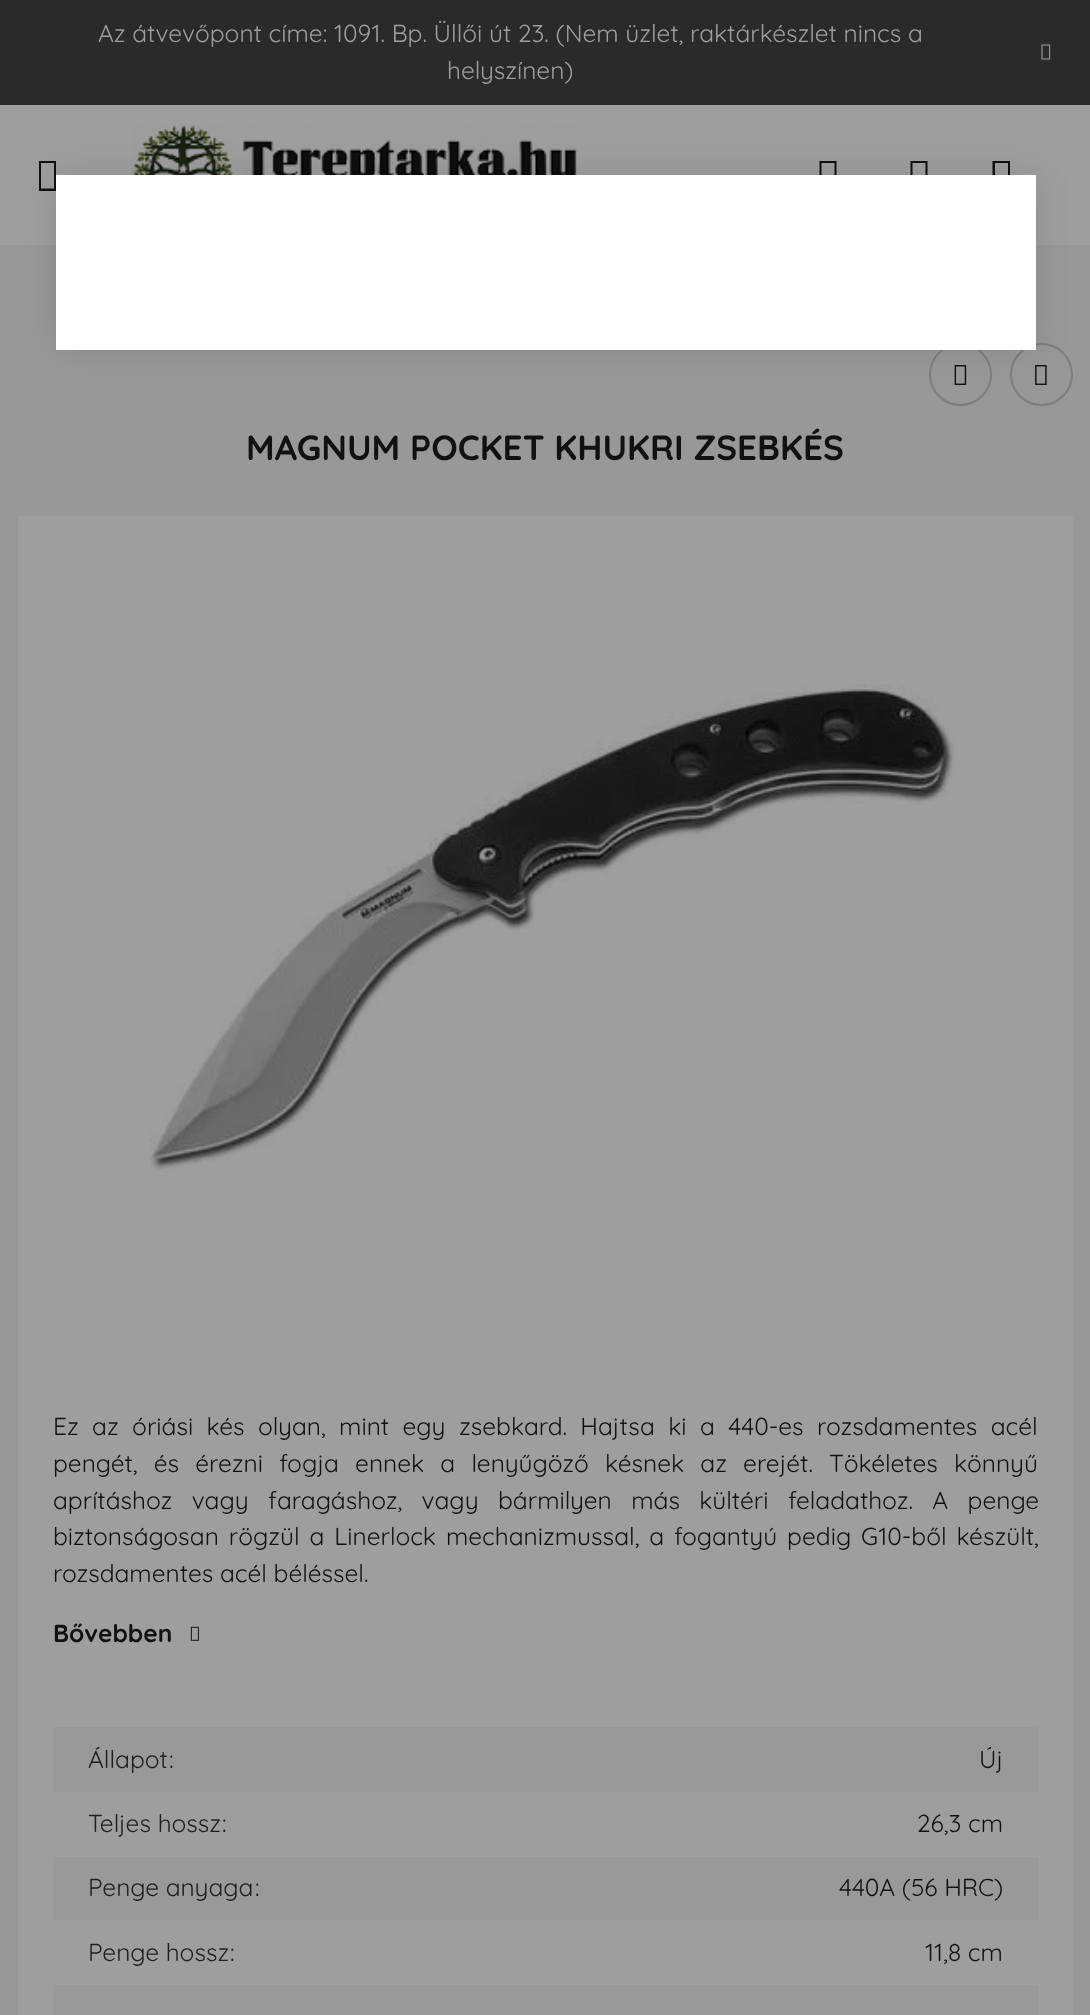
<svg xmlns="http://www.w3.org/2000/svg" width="1090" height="2015">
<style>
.a{font:24.5px Quicksand;fill:#9e9e9e}
.b{font:bold 35px Quicksand;fill:#111}
.c{font:24.5px Quicksand;fill:#111}
.d{font:bold 24.5px Quicksand;fill:#111}
.e{font:24.5px Quicksand;fill:#201c20}
</style>
<rect width="100%" height="100%" fill="#989898"/>
<path fill="#2a2a2a" d="M0 0h1090v105H0z"/>
<image href="1.png" x="1041" y="44" width="10" height="16"/>
<path fill="#9e9e9e" d="M0 105h1090v140H0z"/>
<path fill="#111" d="M39 191v-30h17v30zm2-2.5h13v-25.5h-13z"/>
<image href="2.png" x="132" y="125" width="445" height="50"/>
<path fill="#111" d="M819.5 191v-30h17v30zm2-2.5h13v-25.5h-13z"/>
<path fill="#111" d="M910.5 191v-30h17v30zm2-2.5h13v-25.5h-13z"/>
<path fill="#111" d="M992.5 191v-30h17.5v30zm2.5-2.5h13v-25.5h-13z"/>
<circle fill="none" stroke="#7e7e7e" stroke-width="2" cx="960.5" cy="374.5" r="30.5"/>
<image href="3.png" x="954" y="365" width="13" height="20"/>
<circle fill="none" stroke="#7e7e7e" stroke-width="2" cx="1041.5" cy="374.5" r="30.5"/>
<image href="4.png" x="1035" y="365" width="12" height="20"/>
<path fill="#9e9e9e" d="M18 516h1055v1499H18z"/>
<image href="5.png" x="149" y="684" width="806" height="489"/>
<image href="6.png" x="190" y="1626" width="9" height="15"/>
<path fill="#999" d="M53 1727h985v65H53z"/>
<path fill="#999" d="M53 1857h985v63H53z"/>
<path fill="#999" d="M53 1985h985v30H53z"/>
<path fill="#0000001a" filter="blur(17.5px)" d="M56 175h980v175H56z"/>
<path fill="#fff" d="M56 175h980v175H56z"/>
<text class="a" x="98" y="42">Az átvevőpont címe: 1091. Bp. Üllői út 23. (Nem üzlet, raktárkészlet nincs a</text>
<text class="a" x="447" y="79">helyszínen)</text>
<text class="b" x="246" y="460">MAGNUM POCKET KHUKRI ZSEBKÉS</text>
<text class="c" x="53" y="1435" word-spacing="6.75">Ez az óriási kés olyan, mint egy zsebkard. Hajtsa ki a 440-es rozsdamentes acél</text>
<text class="c" x="53" y="1472" word-spacing="9.5">pengét, és érezni fogja ennek a lenyűgöző késnek az erejét. Tökéletes könnyű</text>
<text class="c" x="53" y="1509" word-spacing="12.75">aprításhoz vagy faragáshoz, vagy bármilyen más kültéri feladathoz. A penge</text>
<text class="c" x="53" y="1545" word-spacing="3.25">biztonságosan rögzül a Linerlock mechanizmussal, a fogantyú pedig G10-ből készült,</text>
<text class="c" x="53" y="1582">rozsdamentes acél béléssel.</text>
<text class="d" x="53" y="1642">Bővebben</text>
<text class="e" x="88" y="1768">Állapot</text>
<text class="e" x="169" y="1768">:</text>
<text class="c" x="979" y="1768">Új</text>
<text class="e" x="88" y="1832">Teljes hossz</text>
<text class="e" x="222" y="1832">:</text>
<text class="c" x="917" y="1832">26,3 cm</text>
<text class="e" x="88" y="1896">Penge anyaga</text>
<text class="e" x="255" y="1896">:</text>
<text class="c" x="839" y="1896">440A (56 HRC)</text>
<text class="e" x="88" y="1961">Penge hossz</text>
<text class="e" x="230" y="1961">:</text>
<text class="c" x="925" y="1961">11,8 cm</text>
</svg>
